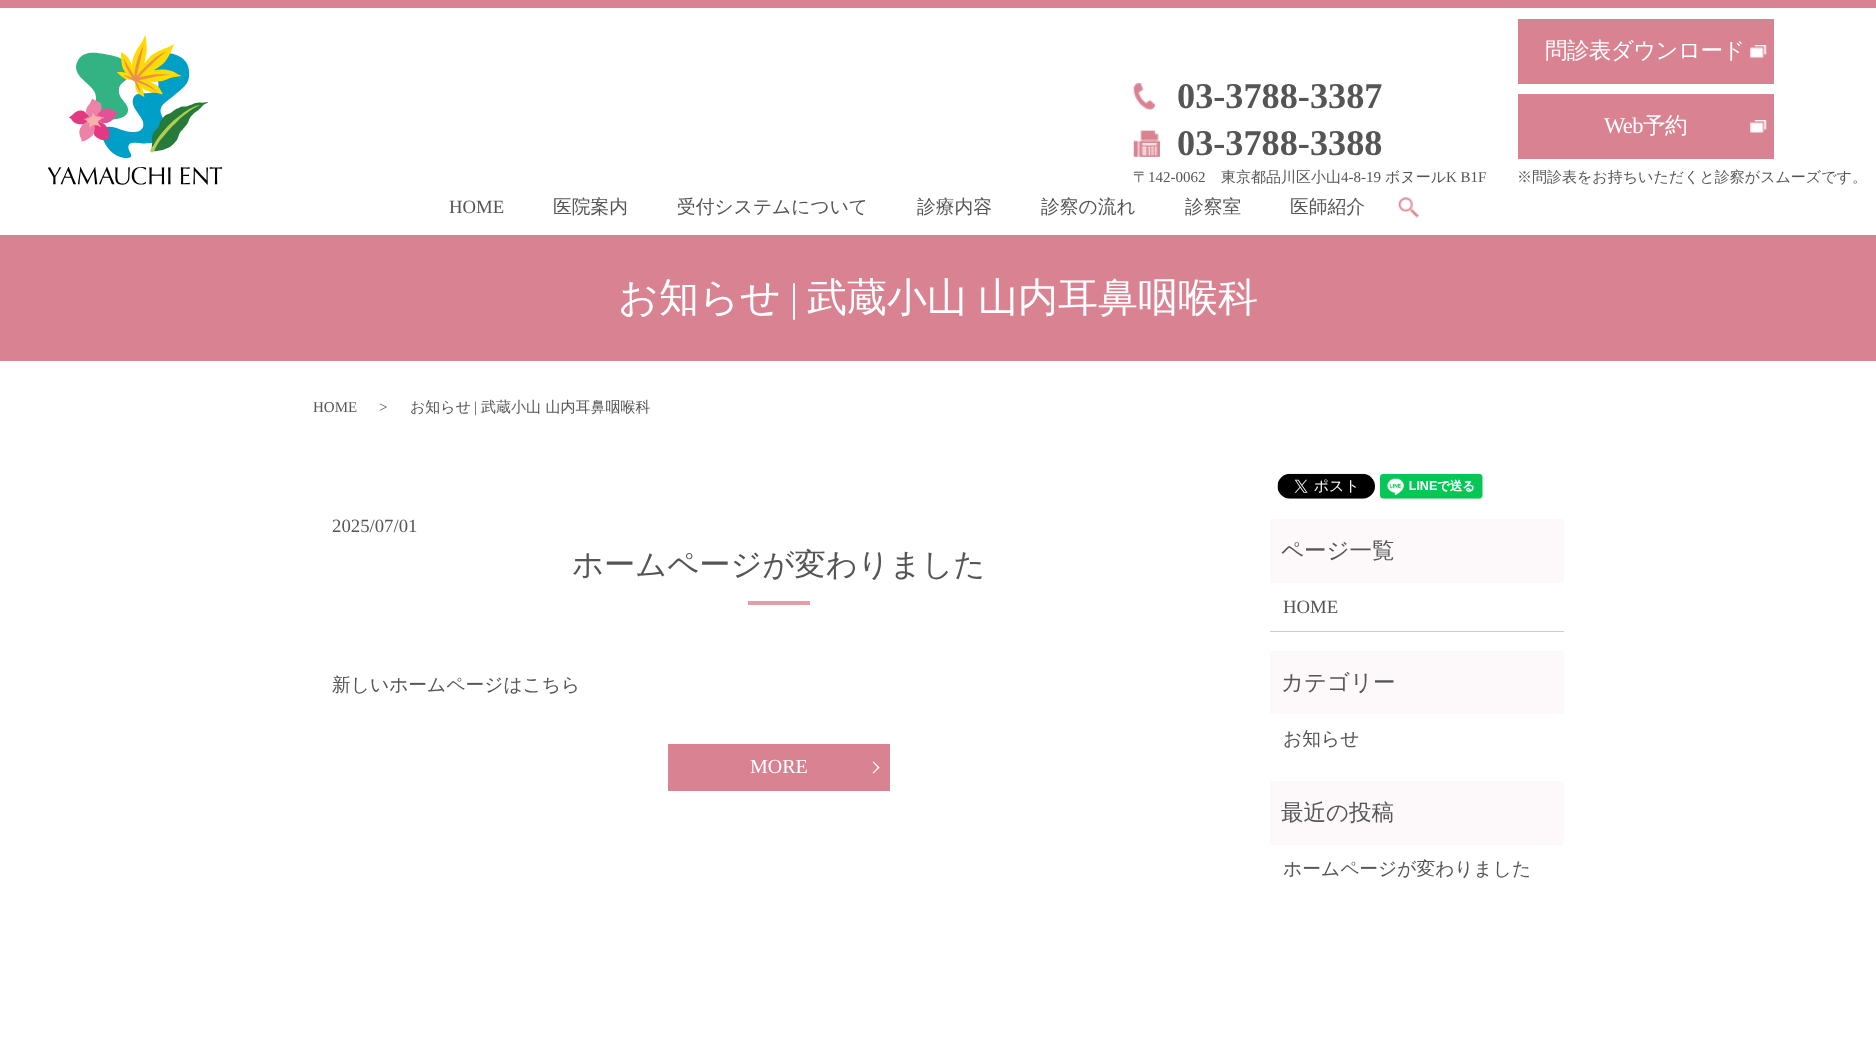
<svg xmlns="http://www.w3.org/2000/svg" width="1876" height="1058">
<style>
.a{font:bold 36.25px Liberation Serif;fill:#555}
.b{font:500 15px WenQuanYi Zen Hei;fill:#555}
.c{font:15px Liberation Serif;fill:#555}
.d{font:500 22.5px WenQuanYi Zen Hei;letter-spacing:-0.6px;fill:#fff}
.e{font:22.5px Liberation Serif;letter-spacing:-0.6px;fill:#fff}
.f{font:18.75px Liberation Serif;fill:#555}
.g{font:500 18.75px WenQuanYi Zen Hei;fill:#555}
.h{font:500 40px WenQuanYi Zen Hei;fill:#fff}
.i{font:40px Liberation Serif;fill:#fff}
.j{font:500 31.25px WenQuanYi Zen Hei;fill:#555}
.k{font:20px Liberation Serif;fill:#fff}
.l{font:500 22.5px WenQuanYi Zen Hei;fill:#555}
</style>
<rect width="100%" height="100%" fill="#fff"/>
<path fill="#d98291" d="M0 0h1876v8H0z"/>
<image href="1.png" x="47" y="34" width="176" height="151"/>
<image href="2.png" x="1133" y="83" width="22" height="27"/>
<image href="3.png" x="1133" y="130" width="27" height="27"/>
<path fill="#d98291" d="M1518 19h256v65H1518z"/>
<image href="4.png" x="1750" y="45" width="17" height="13"/>
<path fill="#d98291" d="M1518 94h256v65H1518z"/>
<image href="4.png" x="1750" y="120" width="17" height="13"/>
<image href="5.png" x="1398" y="197" width="21" height="21"/>
<path fill="#d98291" d="M0 235h1876v126H0z"/>
<path fill="#e49ca9" d="M748 601h62v4H748z"/>
<path fill="#d98291" d="M668 744h222v47H668z"/>
<path fill="#fff" d="M873.5 761.5l6 6l-1 1l-6-6.5z"/>
<path fill="#fff" d="M878.5 766.5l1 1l-6 6l-1-.5z"/>
<image href="6.png" x="1277" y="473" width="98" height="26"/>
<image href="7.png" x="1380" y="473" width="103" height="26"/>
<path fill="#fdf9fa" d="M1270 519h294v64H1270z"/>
<path fill="#ccc" d="M1270 631h294v1H1270z"/>
<path fill="#fdf9fa" d="M1270 651h294v63H1270z"/>
<path fill="#fdf9fa" d="M1270 781h294v64H1270z"/>
<text class="a" x="1177" y="108">03-3788-3387</text>
<text class="a" x="1177" y="155">03-3788-3388</text>
<text class="b" x="1133" y="182">〒</text>
<text class="c" x="1148" y="182">142-0062</text>
<text class="b" x="1221" y="182">東京都品川区小山</text>
<text class="c" x="1341" y="182">4-8-19</text>
<text class="b" x="1385" y="182">ボヌール</text>
<text class="c" x="1446" y="182">K B1F</text>
<text class="d" x="1545" y="58">問診表ダウンロード</text>
<text class="e" x="1604" y="133">Web</text>
<text class="d" x="1643" y="133">予約</text>
<text class="b" x="1517" y="182">※問診表をお持ちいただくと診察がスムーズです。</text>
<text class="f" x="449" y="213">HOME</text>
<text class="g" x="553" y="213">医院案内</text>
<text class="g" x="677" y="213">受付システムについて</text>
<text class="g" x="917" y="213">診療内容</text>
<text class="g" x="1041" y="213">診察の流れ</text>
<text class="g" x="1185" y="213">診察室</text>
<text class="g" x="1290" y="213">医師紹介</text>
<text class="h" x="618" y="311">お知らせ</text>
<text class="i" x="790" y="311">|</text>
<text class="h" x="807" y="311" word-spacing="-1">武蔵小山 山内耳鼻咽喉科</text>
<text class="c" x="313" y="412">HOME</text>
<text class="c" x="379" y="412">&gt;</text>
<text class="b" x="410" y="412">お知らせ</text>
<text class="c" x="474" y="412">|</text>
<text class="b" x="481" y="412">武蔵小山 山内耳鼻咽喉科</text>
<text class="f" x="332" y="532">2025/07/01</text>
<text class="j" x="572" y="575">ホームページが変わりました</text>
<text class="g" x="332" y="691">新しいホームページはこちら</text>
<text class="k" x="750" y="773">MORE</text>
<text class="l" x="1281" y="558">ページ一覧</text>
<text class="f" x="1283" y="613">HOME</text>
<text class="l" x="1281" y="690">カテゴリー</text>
<text class="g" x="1283" y="745">お知らせ</text>
<text class="l" x="1281" y="820">最近の投稿</text>
<text class="g" x="1283" y="875">ホームページが変わりました</text>
</svg>
